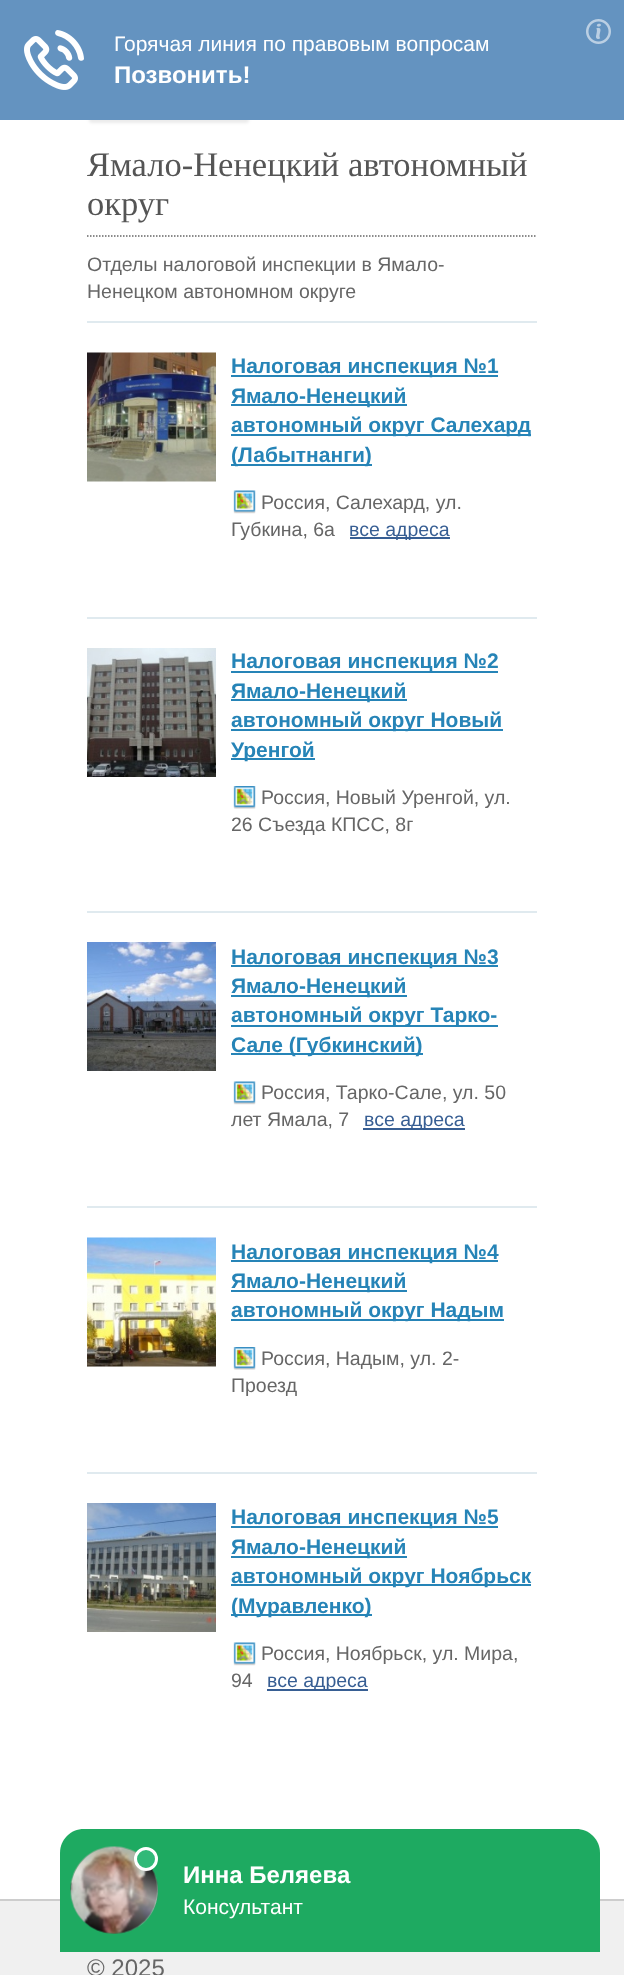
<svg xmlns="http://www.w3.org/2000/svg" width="624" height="1975">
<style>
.a{font:21px Liberation Sans;fill:#fff}
.b{font:bold 24px Liberation Sans;fill:#fff}
.c{font:34.5px Liberation Serif;fill:#555}
.d{font:19.5px Liberation Sans;fill:#666}
.e{font:bold 21px Liberation Sans;fill:#2684b7}
.f{font:19.5px Liberation Sans;fill:#375e93}
.g{font:24px Liberation Sans;fill:#666}
</style>
<defs>
<linearGradient id="g1" gradientUnits="userSpaceOnUse" x1="129" y1="1854" x2="99" y2="1936"><stop offset="0" stop-color="#fff" stop-opacity="0"/><stop offset="0.4" stop-color="#fff" stop-opacity="0.6"/><stop offset="0.6" stop-color="#fff" stop-opacity="0.36"/><stop offset="1" stop-color="#fff" stop-opacity="0"/></linearGradient>
</defs>
<rect width="100%" height="100%" fill="#fff"/>
<rect fill="#00000014" filter="blur(1.5px)" x="89" y="77" width="160" height="46" rx="3"/>
<path fill="#6493c0" d="M0 0h624v120H0z"/>
<image href="1.png" x="586" y="19" width="25" height="25"/>
<image href="2.png" x="24" y="30" width="60" height="60"/>
<path fill="none" stroke="#666" stroke-width="1.5" stroke-dasharray="1.5 1.5" d="M87 236h450"/>
<path fill="#e0eaef" d="M87 321h450v2H87z"/>
<image href="3.png" x="87" y="352" width="129" height="130"/>
<path fill="#2684b7" d="M231 375h267v2H231z"/>
<path fill="#2684b7" d="M231 404h176v2H231z"/>
<path fill="#2684b7" d="M231 434h300v2H231z"/>
<path fill="#2684b7" d="M231 464h141v2H231z"/>
<image href="4.png" x="233" y="490" width="23" height="24"/>
<path fill="#375e93" d="M350 537h100v2H350z"/>
<path fill="#e0eaef" d="M87 617h450v2H87z"/>
<image href="5.png" x="87" y="648" width="129" height="129"/>
<path fill="#2684b7" d="M231 671h267v2H231z"/>
<path fill="#2684b7" d="M231 699h176v2H231z"/>
<path fill="#2684b7" d="M231 729h272v2H231z"/>
<path fill="#2684b7" d="M231 758h84v2H231z"/>
<image href="6.png" x="233" y="786" width="23" height="23"/>
<path fill="#e0eaef" d="M87 911h450v2H87z"/>
<image href="7.png" x="87" y="942" width="129" height="129"/>
<path fill="#2684b7" d="M231 965h267v2H231z"/>
<path fill="#2684b7" d="M231 995h176v2H231z"/>
<path fill="#2684b7" d="M231 1025h267v2H231z"/>
<path fill="#2684b7" d="M231 1053h192v2H231z"/>
<image href="4.png" x="233" y="1081" width="23" height="24"/>
<path fill="#375e93" d="M363 1128h102v2H363z"/>
<path fill="#e0eaef" d="M87 1206h450v2H87z"/>
<image href="8.png" x="87" y="1237" width="129" height="130"/>
<path fill="#2684b7" d="M231 1260h267v2H231z"/>
<path fill="#2684b7" d="M231 1290h176v2H231z"/>
<path fill="#2684b7" d="M231 1319h273v2H231z"/>
<image href="6.png" x="233" y="1347" width="23" height="23"/>
<path fill="#e0eaef" d="M87 1472h450v2H87z"/>
<image href="9.png" x="87" y="1503" width="129" height="129"/>
<path fill="#2684b7" d="M231 1526h267v2H231z"/>
<path fill="#2684b7" d="M231 1556h176v2H231z"/>
<path fill="#2684b7" d="M231 1584h300v2H231z"/>
<path fill="#2684b7" d="M231 1614h141v2H231z"/>
<image href="4.png" x="233" y="1642" width="23" height="24"/>
<path fill="#375e93" d="M267 1689h101v2H267z"/>
<path fill="#f0f0f0" d="M0 1901h624v74H0z"/>
<path fill="#cdcdcd" d="M0 1899h624v2H0z"/>
<path fill="#1eaa61" d="M84 1829h492c13.5 0 24 10.5 24 24v99h-540v-99c0-13.5 10.5-24 24-24z"/>
<circle fill="#178049" cx="114.5" cy="1890.5" r="43.5"/>
<image href="10.png" x="70" y="1846" width="88" height="88"/>
<path fill="url(#g1)" d="M109 1847l37 14c8 7 12 18 12 29c0 25-19 44-44 44c-24 0-43-19-43-44c0-22 17-40 38-43z"/>
<circle fill="#31b978" stroke="#fff" stroke-width="3" cx="146" cy="1859" r="10.5"/>
<text class="a" x="114" y="51">Горячая линия по правовым вопросам</text>
<text class="b" x="114" y="83">Позвонить!</text>
<text class="c" x="87" y="176">Ямало-Ненецкий автономный</text>
<text class="c" x="87" y="215">округ</text>
<text class="d" x="87" y="271">Отделы налоговой инспекции в Ямало-</text>
<text class="d" x="87" y="298">Ненецком автономном округе</text>
<text class="e" x="231" y="373">Налоговая инспекция №1</text>
<text class="e" x="231" y="403">Ямало-Ненецкий</text>
<text class="e" x="231" y="432">автономный округ Салехард</text>
<text class="e" x="231" y="462">(Лабытнанги)</text>
<text class="d" x="261" y="509">Россия, Салехард, ул.</text>
<text class="d" x="231" y="536">Губкина, 6а</text>
<text class="f" x="349" y="536">все адреса</text>
<text class="e" x="231" y="668">Налоговая инспекция №2</text>
<text class="e" x="231" y="698">Ямало-Ненецкий</text>
<text class="e" x="231" y="727">автономный округ Новый</text>
<text class="e" x="231" y="757">Уренгой</text>
<text class="d" x="261" y="804">Россия, Новый Уренгой, ул.</text>
<text class="d" x="231" y="831">26 Съезда КПСС, 8г</text>
<text class="e" x="231" y="964">Налоговая инспекция №3</text>
<text class="e" x="231" y="993">Ямало-Ненецкий</text>
<text class="e" x="231" y="1022">автономный округ Тарко-</text>
<text class="e" x="231" y="1052">Сале (Губкинский)</text>
<text class="d" x="261" y="1099">Россия, Тарко-Сале, ул. 50</text>
<text class="d" x="231" y="1126">лет Ямала, 7</text>
<text class="f" x="364" y="1126">все адреса</text>
<text class="e" x="231" y="1259">Налоговая инспекция №4</text>
<text class="e" x="231" y="1288">Ямало-Ненецкий</text>
<text class="e" x="231" y="1317">автономный округ Надым</text>
<text class="d" x="261" y="1365">Россия, Надым, ул. 2-</text>
<text class="d" x="231" y="1392">Проезд</text>
<text class="e" x="231" y="1524">Налоговая инспекция №5</text>
<text class="e" x="231" y="1554">Ямало-Ненецкий</text>
<text class="e" x="231" y="1583">автономный округ Ноябрьск</text>
<text class="e" x="231" y="1613">(Муравленко)</text>
<text class="d" x="261" y="1660">Россия, Ноябрьск, ул. Мира,</text>
<text class="d" x="231" y="1687">94</text>
<text class="f" x="267" y="1687">все адреса</text>
<text class="b" x="183" y="1883">Инна Беляева</text>
<text class="a" x="183" y="1914">Консультант</text>
<text class="g" x="87" y="1976">© 2025</text>
</svg>
